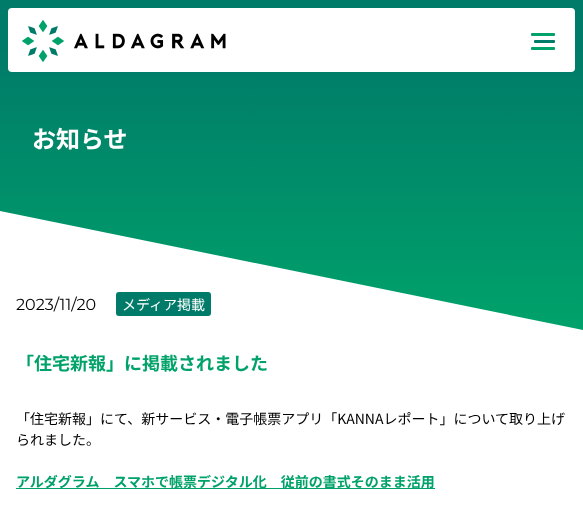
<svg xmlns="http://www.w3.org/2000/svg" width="583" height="518">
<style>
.a{font:16px Montserrat;fill:#000}
.b{font:14px Noto Sans CJK JP;fill:#fff}
.c{font:bold 24px Noto Sans CJK JP;fill:#fff}
.d{font:bold 18px Noto Sans CJK JP;fill:#00a26a}
.e{font:14px Noto Sans CJK JP;fill:#000}
.f{font:bold 14px Noto Sans CJK JP;fill:#00a26a}
</style>
<defs>
<linearGradient id="g1" gradientUnits="userSpaceOnUse" x1="292" y1="0" x2="292" y2="330"><stop offset="0.15" stop-color="#007b69"/><stop offset="1" stop-color="#00a26a"/></linearGradient>
</defs>
<rect width="100%" height="100%" fill="#fff"/>
<rect fill="#007b69" x="116" y="292" width="95" height="24" rx="3"/>
<path fill="#00a26a" d="M16 488h419v1H16z"/>
<text class="a" x="16" y="310">2023/11/20</text>
<text class="b" x="122" y="310">メディア掲載</text>
<path fill="url(#g1)" d="M0 0v211l583 119v-330z"/>
<rect fill="#fff" x="8" y="8" width="567" height="64" rx="4"/>
<rect fill="#00a26a" x="531" y="47" width="24" height="3" rx="1"/>
<rect fill="#007b69" x="534" y="40" width="21" height="3" rx="1"/>
<rect fill="#00a26a" x="531" y="33" width="24" height="3" rx="1"/>
<image href="1.png" x="22" y="20" width="204" height="42"/>
<text class="c" x="32" y="148">お知らせ</text>
<text class="d" x="16" y="370">「住宅新報」に掲載されました</text>
<text class="e" x="16" y="424">「住宅新報」にて、新サービス・電子帳票アプリ「KANNAレポート」について取り上げ</text>
<text class="e" x="16" y="445">られました。</text>
<text class="f" x="16" y="487">アルダグラム　スマホで帳票デジタル化　従前の書式そのまま活用</text>
</svg>
